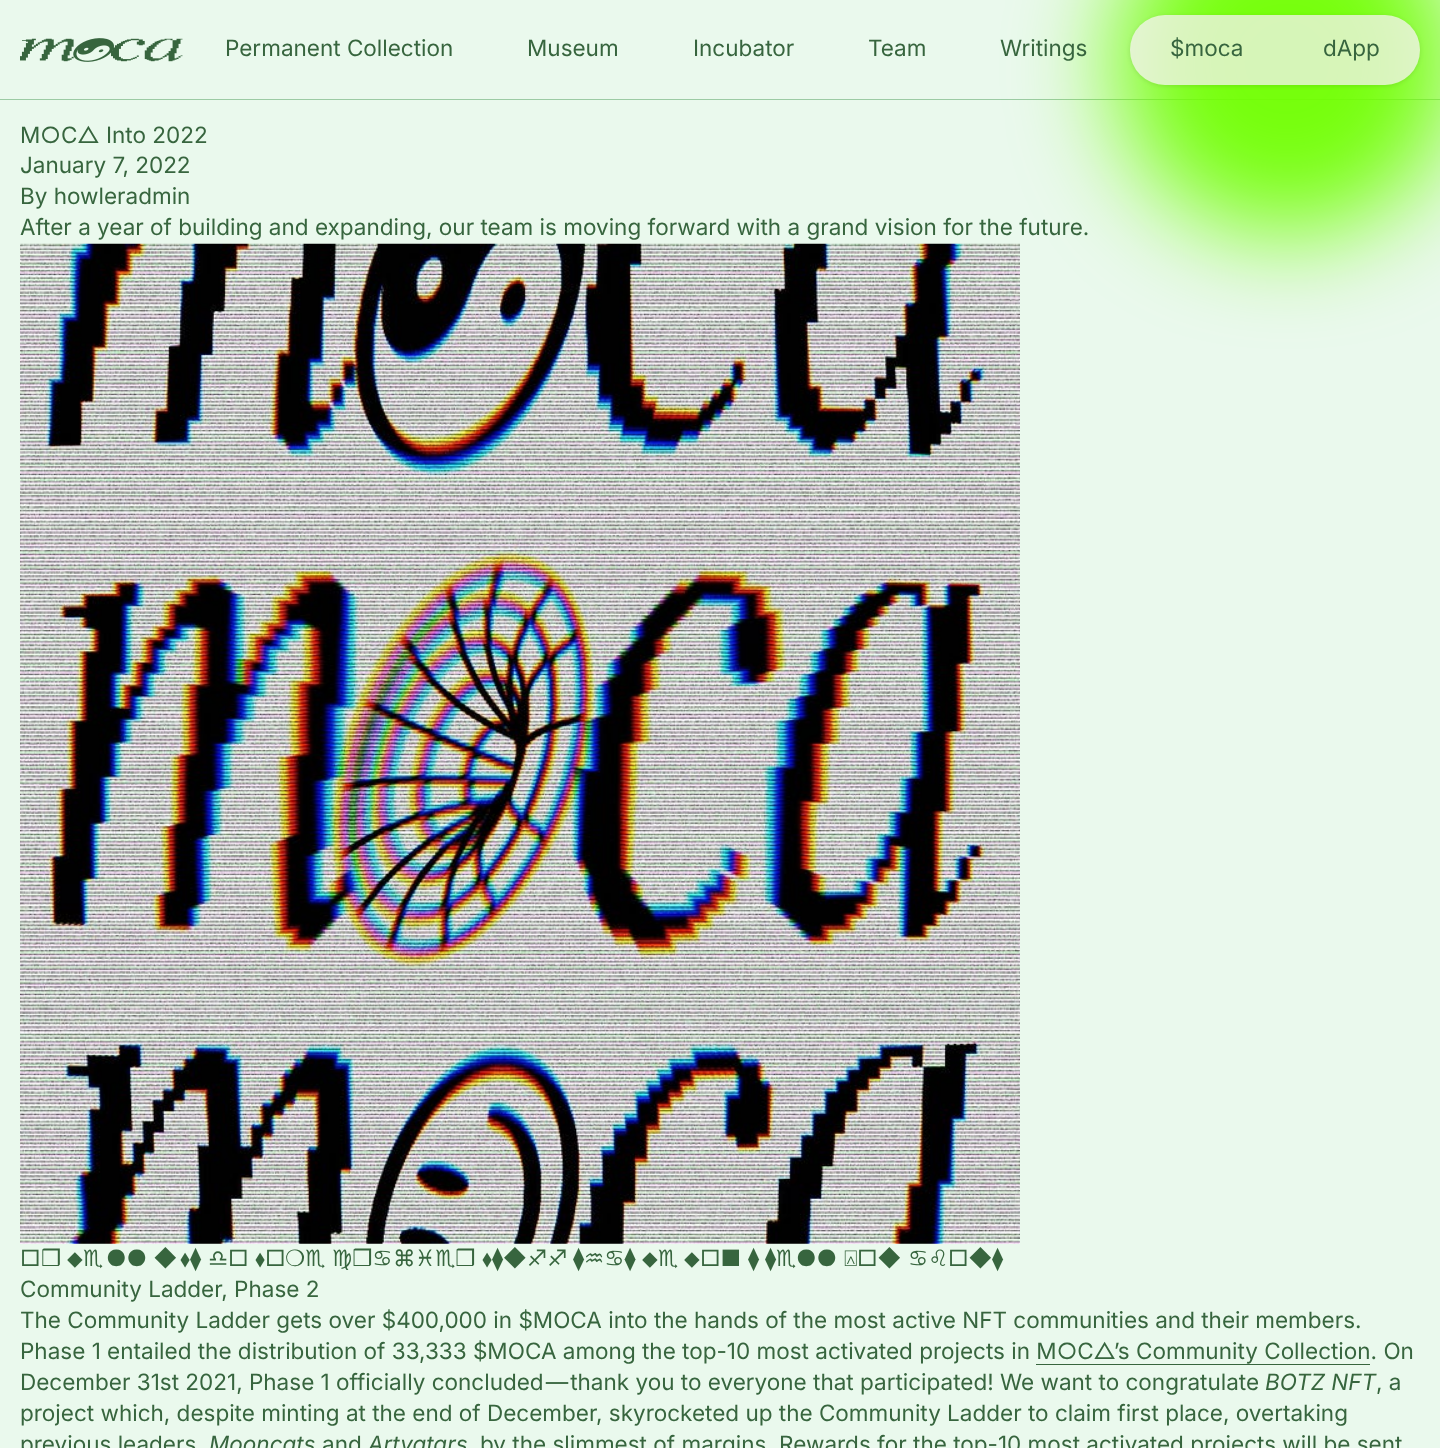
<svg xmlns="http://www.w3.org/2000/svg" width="1440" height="1448">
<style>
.a{font:22.5px Inter;fill:#37653e}
.b{font:22.5px DejaVu Sans;fill:#37653e}
.c{font:22.5px FreeSans;fill:#37653e}
.d{font:22.5px FreeSerif;fill:#37653e}
.e{font:italic 22.5px Inter;fill:#37653e}
</style>
<defs>
<clipPath id="clip1"><path d="M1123 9h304v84h-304zm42 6h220c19.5 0 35 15.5 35 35c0 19.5-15.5 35-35 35h-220c-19.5 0-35-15.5-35-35c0-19.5 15.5-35 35-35z" clip-rule="evenodd"/></clipPath>
</defs>
<rect width="100%" height="100%" fill="#eaf9ed"/>
<path fill="#9ccba4" d="M0 99h1440v1H0z"/>
<image href="1.png" x="20" y="38" width="163" height="24"/>
<image href="2.png" x="20" y="243" width="1000" height="1001"/>
<rect fill="#70ff00f2" filter="blur(50px)" x="1115" y="-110" width="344" height="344" rx="172"/>
<g clip-path="url(#clip1)">
<rect fill="#0000001a" filter="blur(2px)" x="1130" y="16" width="290" height="70" rx="35"/>
</g>
<rect fill="#f7f2f2bf" x="1130" y="15" width="290" height="70" rx="35"/>
<path fill="#37653e" d="M1036 1364h334v1H1036z"/>
<text class="a" x="225" y="56">Permanent Collection</text>
<text class="a" x="527" y="56">Museum</text>
<text class="a" x="693" y="56">Incubator</text>
<text class="a" x="868" y="56">Team</text>
<text class="a" x="1000" y="56">Writings</text>
<text class="a" x="1170" y="56">$moca</text>
<text class="a" x="1323" y="56">dApp</text>
<text class="a" x="20" y="143">M○C△ Into 2022</text>
<text class="a" x="20" y="173">January 7, 2022</text>
<text class="a" x="20" y="204">By howleradmin</text>
<text class="a" x="20" y="235">After a year of building and expanding, our team is moving forward with a grand vision for the future.</text>
<text class="a" x="20" y="1266">□︎</text>
<text class="b" x="41" y="1266">❒︎</text>
<text class="c" x="67" y="1266">⬥︎</text>
<text class="b" x="83" y="1266">♏︎</text>
<text class="a" x="106" y="1266">︎●︎●︎ ◆︎</text>
<text class="c" x="180" y="1266">⬧︎</text>
<text class="b" x="190" y="1266">⧫︎</text>
<text class="b" x="208" y="1266">♎︎</text>
<text class="a" x="228" y="1266">□︎</text>
<text class="c" x="255" y="1266">⬧︎</text>
<text class="a" x="265" y="1266">□︎</text>
<text class="b" x="285" y="1266">❍︎♏︎</text>
<text class="b" x="332" y="1266">♍︎❒︎♋︎</text>
<text class="a" x="393" y="1266">⌘︎</text>
<text class="b" x="415" y="1266">♓︎♏︎❒︎</text>
<text class="c" x="482" y="1266">⬧︎</text>
<text class="b" x="492" y="1266">⧫︎</text>
<text class="a" x="503" y="1266">◆︎</text>
<text class="b" x="527" y="1266">♐︎♐︎</text>
<text class="b" x="573" y="1266">⧫︎♒︎♋︎⧫︎</text>
<text class="c" x="642" y="1266">⬥︎</text>
<text class="b" x="658" y="1266">♏︎</text>
<text class="c" x="684" y="1266">⬥︎</text>
<text class="a" x="700" y="1266">□︎■︎ ︎</text>
<text class="b" x="748" y="1266">⧫︎</text>
<text class="b" x="765" y="1266">⧫︎♏︎</text>
<text class="a" x="796" y="1266">●︎●︎</text>
<text class="d" x="844" y="1266">⍓︎</text>
<text class="a" x="857" y="1266">□︎◆︎</text>
<text class="b" x="908" y="1266">♋︎♌︎</text>
<text class="a" x="948" y="1266">□︎◆︎</text>
<text class="b" x="992" y="1266">⧫︎</text>
<text class="a" x="20" y="1297">Community Ladder, Phase 2</text>
<text class="a" x="20" y="1328">The Community Ladder gets over $400,000 in $MOCA into the hands of the most active NFT communities and their members.</text>
<text class="a" x="20" y="1359">Phase 1 entailed the distribution of 33,333 $MOCA among the top-10 most activated projects in M○C△’s Community Collection. On</text>
<text class="a" x="20" y="1390">December 31st 2021, Phase 1 officially concluded — thank you to everyone that participated! We want to congratulate</text>
<text class="e" x="1265" y="1390">BOTZ NFT</text>
<text class="a" x="1376" y="1390">, a</text>
<text class="a" x="20" y="1421">project which, despite minting at the end of December, skyrocketed up the Community Ladder to claim first place, overtaking</text>
<text class="a" x="20" y="1452">previous leaders</text>
<text class="e" x="209" y="1452">Mooncats</text>
<text class="a" x="322" y="1452">and</text>
<text class="e" x="368" y="1452">Artvatars</text>
<text class="a" x="480" y="1452">by the slimmest of margins. Rewards for the top-10 most activated projects will be sent</text>
</svg>
